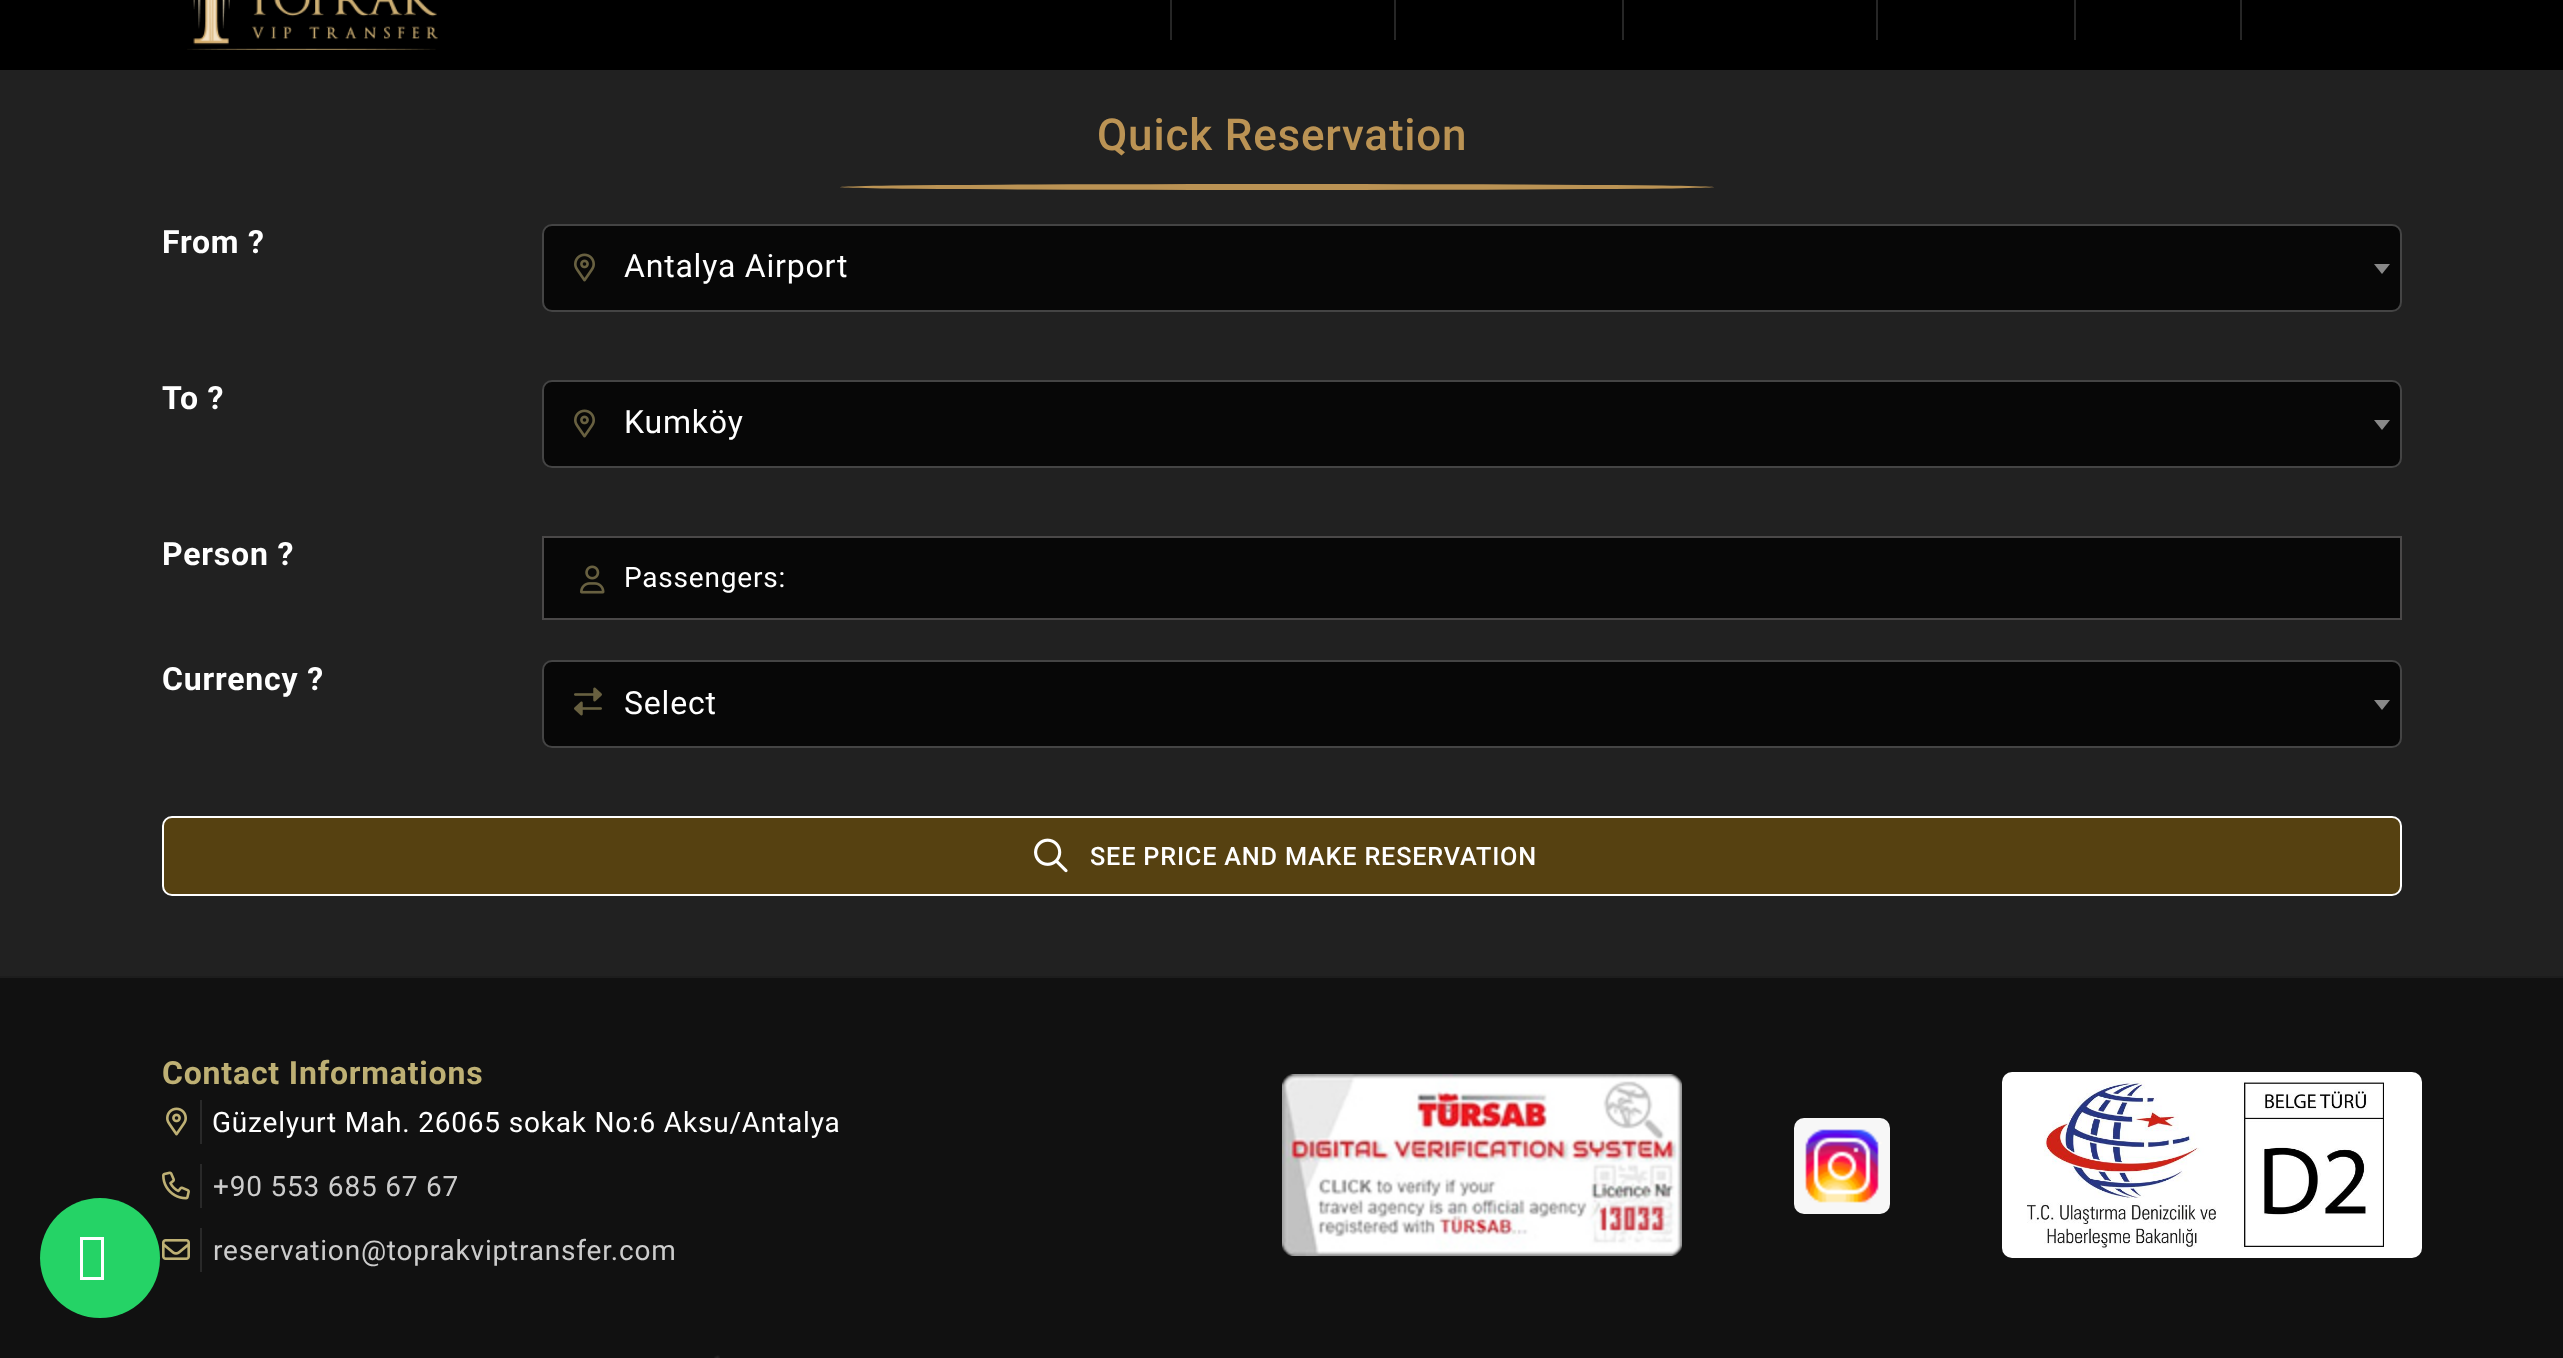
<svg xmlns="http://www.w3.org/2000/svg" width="2563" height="1358">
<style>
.a{font:500 44px Roboto;letter-spacing:0.8px;fill:#bb9354}
.b{font:bold 32px Roboto;letter-spacing:0.8px;fill:#fff}
.c{font:32px Roboto;letter-spacing:0.8px;fill:#fff}
.d{font:28px Roboto;letter-spacing:0.8px;fill:#fff}
.e{font:500 25.25px Roboto;letter-spacing:0.8px;fill:#fff}
.f{font:bold 32px Roboto;letter-spacing:0.8px;fill:#beb074}
.g{font:28px Roboto;letter-spacing:0.8px;fill:#ccc}
</style>
<rect width="100%" height="100%" fill="#212121"/>
<path fill="#000" d="M0 0h2563v70H0z"/>
<image href="1.png" x="187" y="0" width="251" height="50"/>
<path fill="#262626" d="M1170 0h2v40H1170z"/>
<path fill="#262626" d="M1394 0h2v40H1394z"/>
<path fill="#262626" d="M1622 0h2v40H1622z"/>
<path fill="#262626" d="M1876 0h2v40H1876z"/>
<path fill="#262626" d="M2074 0h2v40H2074z"/>
<path fill="#262626" d="M2240 0h2v40H2240z"/>
<path fill="#0000001a" d="M0 976h2563v2H0z"/>
<ellipse fill="#bb9354" cx="1277" cy="187" rx="437" ry="3"/>
<rect fill="#070707" stroke="#444" stroke-width="2" x="543" y="225" width="1858" height="86" rx="9"/>
<image href="2.png" x="574" y="253" width="21" height="29"/>
<path fill="#888" d="M2374 264h16l-8 10z"/>
<rect fill="#070707" stroke="#444" stroke-width="2" x="543" y="381" width="1858" height="86" rx="9"/>
<image href="2.png" x="574" y="409" width="21" height="29"/>
<path fill="#888" d="M2374 420h16l-8 10z"/>
<path fill="#070707" stroke="#4a4848" stroke-width="2" d="M543 537h1858v82H543z"/>
<image href="3.png" x="580" y="565" width="25" height="29"/>
<rect fill="#070707" stroke="#444" stroke-width="2" x="543" y="661" width="1858" height="86" rx="9"/>
<image href="4.png" x="574" y="687" width="28" height="29"/>
<path fill="#888" d="M2374 700h16l-8 10z"/>
<rect fill="#564111" stroke="#fff" stroke-width="2" x="163" y="817" width="2238" height="78" rx="9"/>
<image href="5.png" x="1034" y="838" width="34" height="35"/>
<path fill="#111" d="M0 978h2563v380H0z"/>
<circle fill="#25d366" cx="100" cy="1258" r="60"/>
<path fill="#fff" d="M80 1280v-43h24v43zm3-3h18v-37h-18z"/>
<path fill="#292929" d="M200 1100h2v44H200z"/>
<image href="6.png" x="166" y="1107" width="21" height="29"/>
<path fill="#292929" d="M200 1164h2v44H200z"/>
<image href="7.png" x="162" y="1171" width="28" height="29"/>
<path fill="#292929" d="M200 1228h2v44H200z"/>
<image href="8.png" x="162" y="1239" width="28" height="21"/>
<image href="9.png" x="1282" y="1074" width="400" height="182"/>
<image href="10.png" x="1794" y="1118" width="96" height="96"/>
<image href="11.png" x="2002" y="1072" width="420" height="186"/>
<image href="12.png" x="714" y="1355" width="6" height="3"/>
<text class="a" x="1097" y="150">Quick Reservation</text>
<text class="b" x="162" y="253">From ?</text>
<text class="c" x="624" y="277">Antalya Airport</text>
<text class="b" x="162" y="409">To ?</text>
<text class="c" x="624" y="433">Kumköy</text>
<text class="b" x="162" y="565">Person ?</text>
<text class="d" x="624" y="587">Passengers:</text>
<text class="b" x="162" y="690">Currency ?</text>
<text class="c" x="624" y="714">Select</text>
<text class="e" x="1090" y="865">SEE PRICE AND MAKE RESERVATION</text>
<text class="f" x="162" y="1084">Contact Informations</text>
<text class="d" x="212" y="1132">Güzelyurt Mah. 26065 sokak No:6 Aksu/Antalya</text>
<text class="g" x="213" y="1196">+90 553 685 67 67</text>
<text class="g" x="213" y="1260">reservation@toprakviptransfer.com</text>
</svg>
